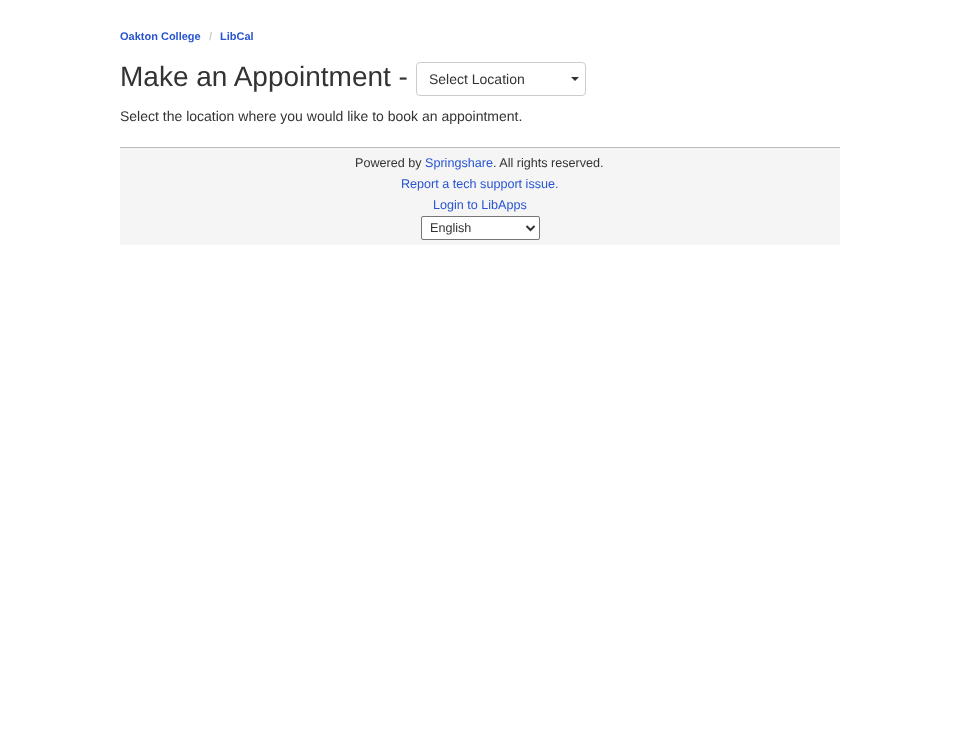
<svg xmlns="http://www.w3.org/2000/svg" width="960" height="746">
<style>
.a{font:bold 11px Liberation Sans;fill:#2954d1}
.b{font:bold 11px Liberation Sans;fill:#ccc}
.c{font:28px Liberation Sans;fill:#333}
.d{font:14px Liberation Sans;fill:#333}
.e{font:12.6px Liberation Sans;fill:#333}
.f{font:12.6px Liberation Sans;fill:#2954d1}
</style>
<rect width="100%" height="100%" fill="#fff"/>
<rect fill="none" stroke="#ccc" x="416.5" y="62.5" width="169" height="33" rx="3.5"/>
<path fill="#333" d="M571 77h8l-4 4z"/>
<path fill="#f5f5f5" d="M120 148h720v97H120z"/>
<path fill="#bbb" d="M120 147h720v1H120z"/>
<rect fill="#fff" stroke="#767676" x="421.5" y="216.5" width="118" height="23" rx="1.5"/>
<path fill="none" stroke="#333" stroke-width="2" d="M526.5 226l4 4l4-4"/>
<text class="a" x="120" y="40">Oakton College</text>
<text class="b" x="209" y="40">/</text>
<text class="a" x="220" y="40">LibCal</text>
<text class="c" x="120" y="86">Make an Appointment -</text>
<text class="d" x="429" y="84">Select Location</text>
<text class="d" x="120" y="121">Select the location where you would like to book an appointment.</text>
<text class="e" x="355" y="167">Powered by</text>
<text class="f" x="425" y="167">Springshare</text>
<text class="e" x="493" y="167">. All rights reserved.</text>
<text class="f" x="401" y="188">Report a tech support issue.</text>
<text class="f" x="433" y="209">Login to LibApps</text>
<text class="e" x="430" y="232">English</text>
</svg>
